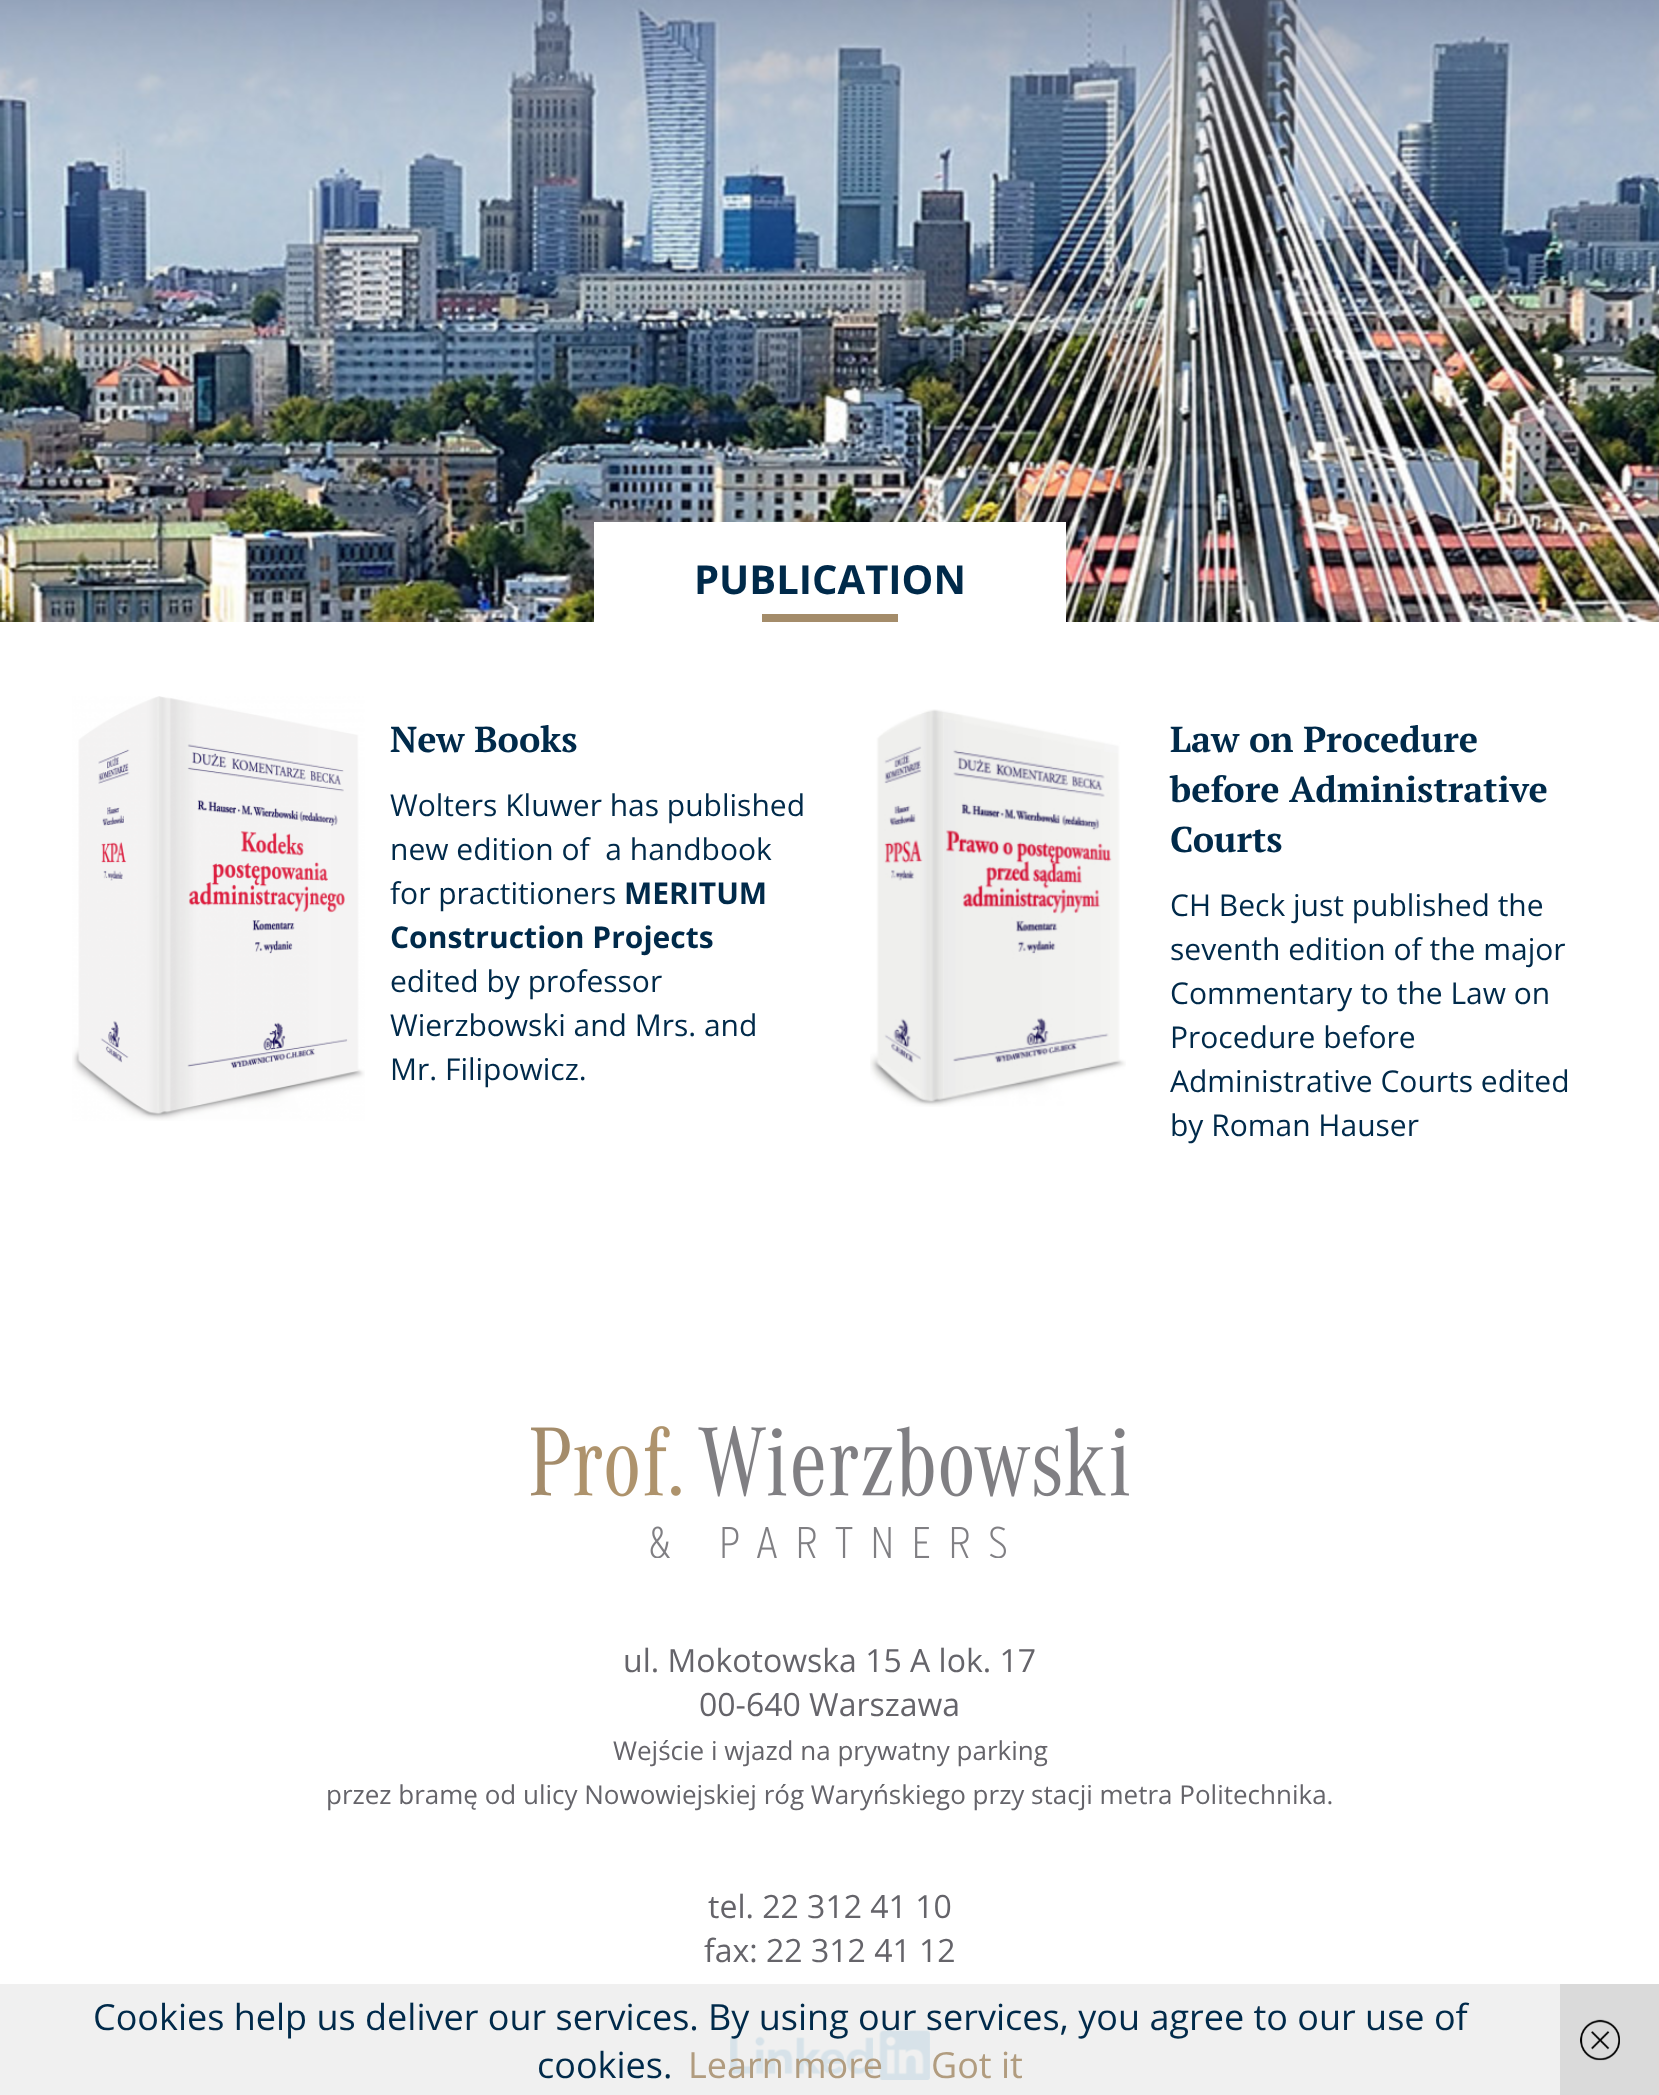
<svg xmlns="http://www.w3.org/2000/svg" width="1659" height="2095">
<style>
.a{font:bold 40px Open Sans;fill:#002a4a}
.b{font:bold 36px PT Serif;fill:#002a4a}
.c{font:30px Open Sans;fill:#002a4a}
.d{font:bold 30px Open Sans;fill:#002a4a}
.e{font:32px Open Sans;fill:#65646a}
.f{font:26px Open Sans;fill:#65646a}
.g{font:36px Open Sans;fill:#002a4a}
.h{font:36px Open Sans;fill:#b19c7f}
</style>
<rect width="100%" height="100%" fill="#fff"/>
<image href="1.png" x="0" y="0" width="1659" height="622"/>
<path fill="#fff" d="M594 522h472v100H594z"/>
<path fill="#a48c6a" d="M762 614h136v8H762z"/>
<image href="2.png" x="72" y="696" width="293" height="425"/>
<image href="3.png" x="870" y="709" width="256" height="398"/>
<image href="4.png" x="531" y="1426" width="598" height="132"/>
<image href="5.png" x="730" y="2030" width="200" height="50"/>
<path fill="#eeeeeee6" d="M0 1984h1560v111H0z"/>
<path fill="#dadada" d="M1560 1984h99v111H1560z"/>
<image href="6.png" x="1580" y="2019" width="40" height="42"/>
<text class="a" x="694" y="594">PUBLICATION</text>
<text class="b" x="390" y="752">New Books</text>
<text class="c" x="390" y="816">Wolters Kluwer has published</text>
<text class="c" xml:space="preserve" x="390" y="860">new edition of  a handbook</text>
<text class="c" x="390" y="904">for practitioners</text>
<text class="d" x="624" y="904">MERITUM</text>
<text class="d" x="390" y="948">Construction Projects</text>
<text class="c" x="390" y="992">edited by professor</text>
<text class="c" x="390" y="1036">Wierzbowski and Mrs. and</text>
<text class="c" x="390" y="1080">Mr. Filipowicz.</text>
<text class="b" x="1170" y="752">Law on Procedure</text>
<text class="b" x="1170" y="802">before Administrative</text>
<text class="b" x="1170" y="852">Courts</text>
<text class="c" x="1170" y="916">CH Beck just published the</text>
<text class="c" x="1170" y="960">seventh edition of the major</text>
<text class="c" x="1170" y="1004">Commentary to the Law on</text>
<text class="c" x="1170" y="1048">Procedure before</text>
<text class="c" x="1170" y="1092">Administrative Courts edited</text>
<text class="c" x="1170" y="1136">by Roman Hauser</text>
<text class="e" x="623" y="1672">ul. Mokotowska 15 A lok. 17</text>
<text class="e" x="699" y="1716">00-640 Warszawa</text>
<text class="f" x="613" y="1760">Wejście i wjazd na prywatny parking</text>
<text class="f" x="326" y="1804">przez bramę od ulicy Nowowiejskiej róg Waryńskiego przy stacji metra Politechnika.</text>
<text class="e" x="708" y="1918">tel. 22 312 41 10</text>
<text class="e" x="704" y="1962">fax: 22 312 41 12</text>
<text class="g" x="93" y="2030">Cookies help us deliver our services. By using our services, you agree to our use of</text>
<text class="g" x="537" y="2078">cookies.</text>
<text class="h" x="688" y="2078">Learn more</text>
<text class="h" x="931" y="2078">Got it</text>
</svg>
